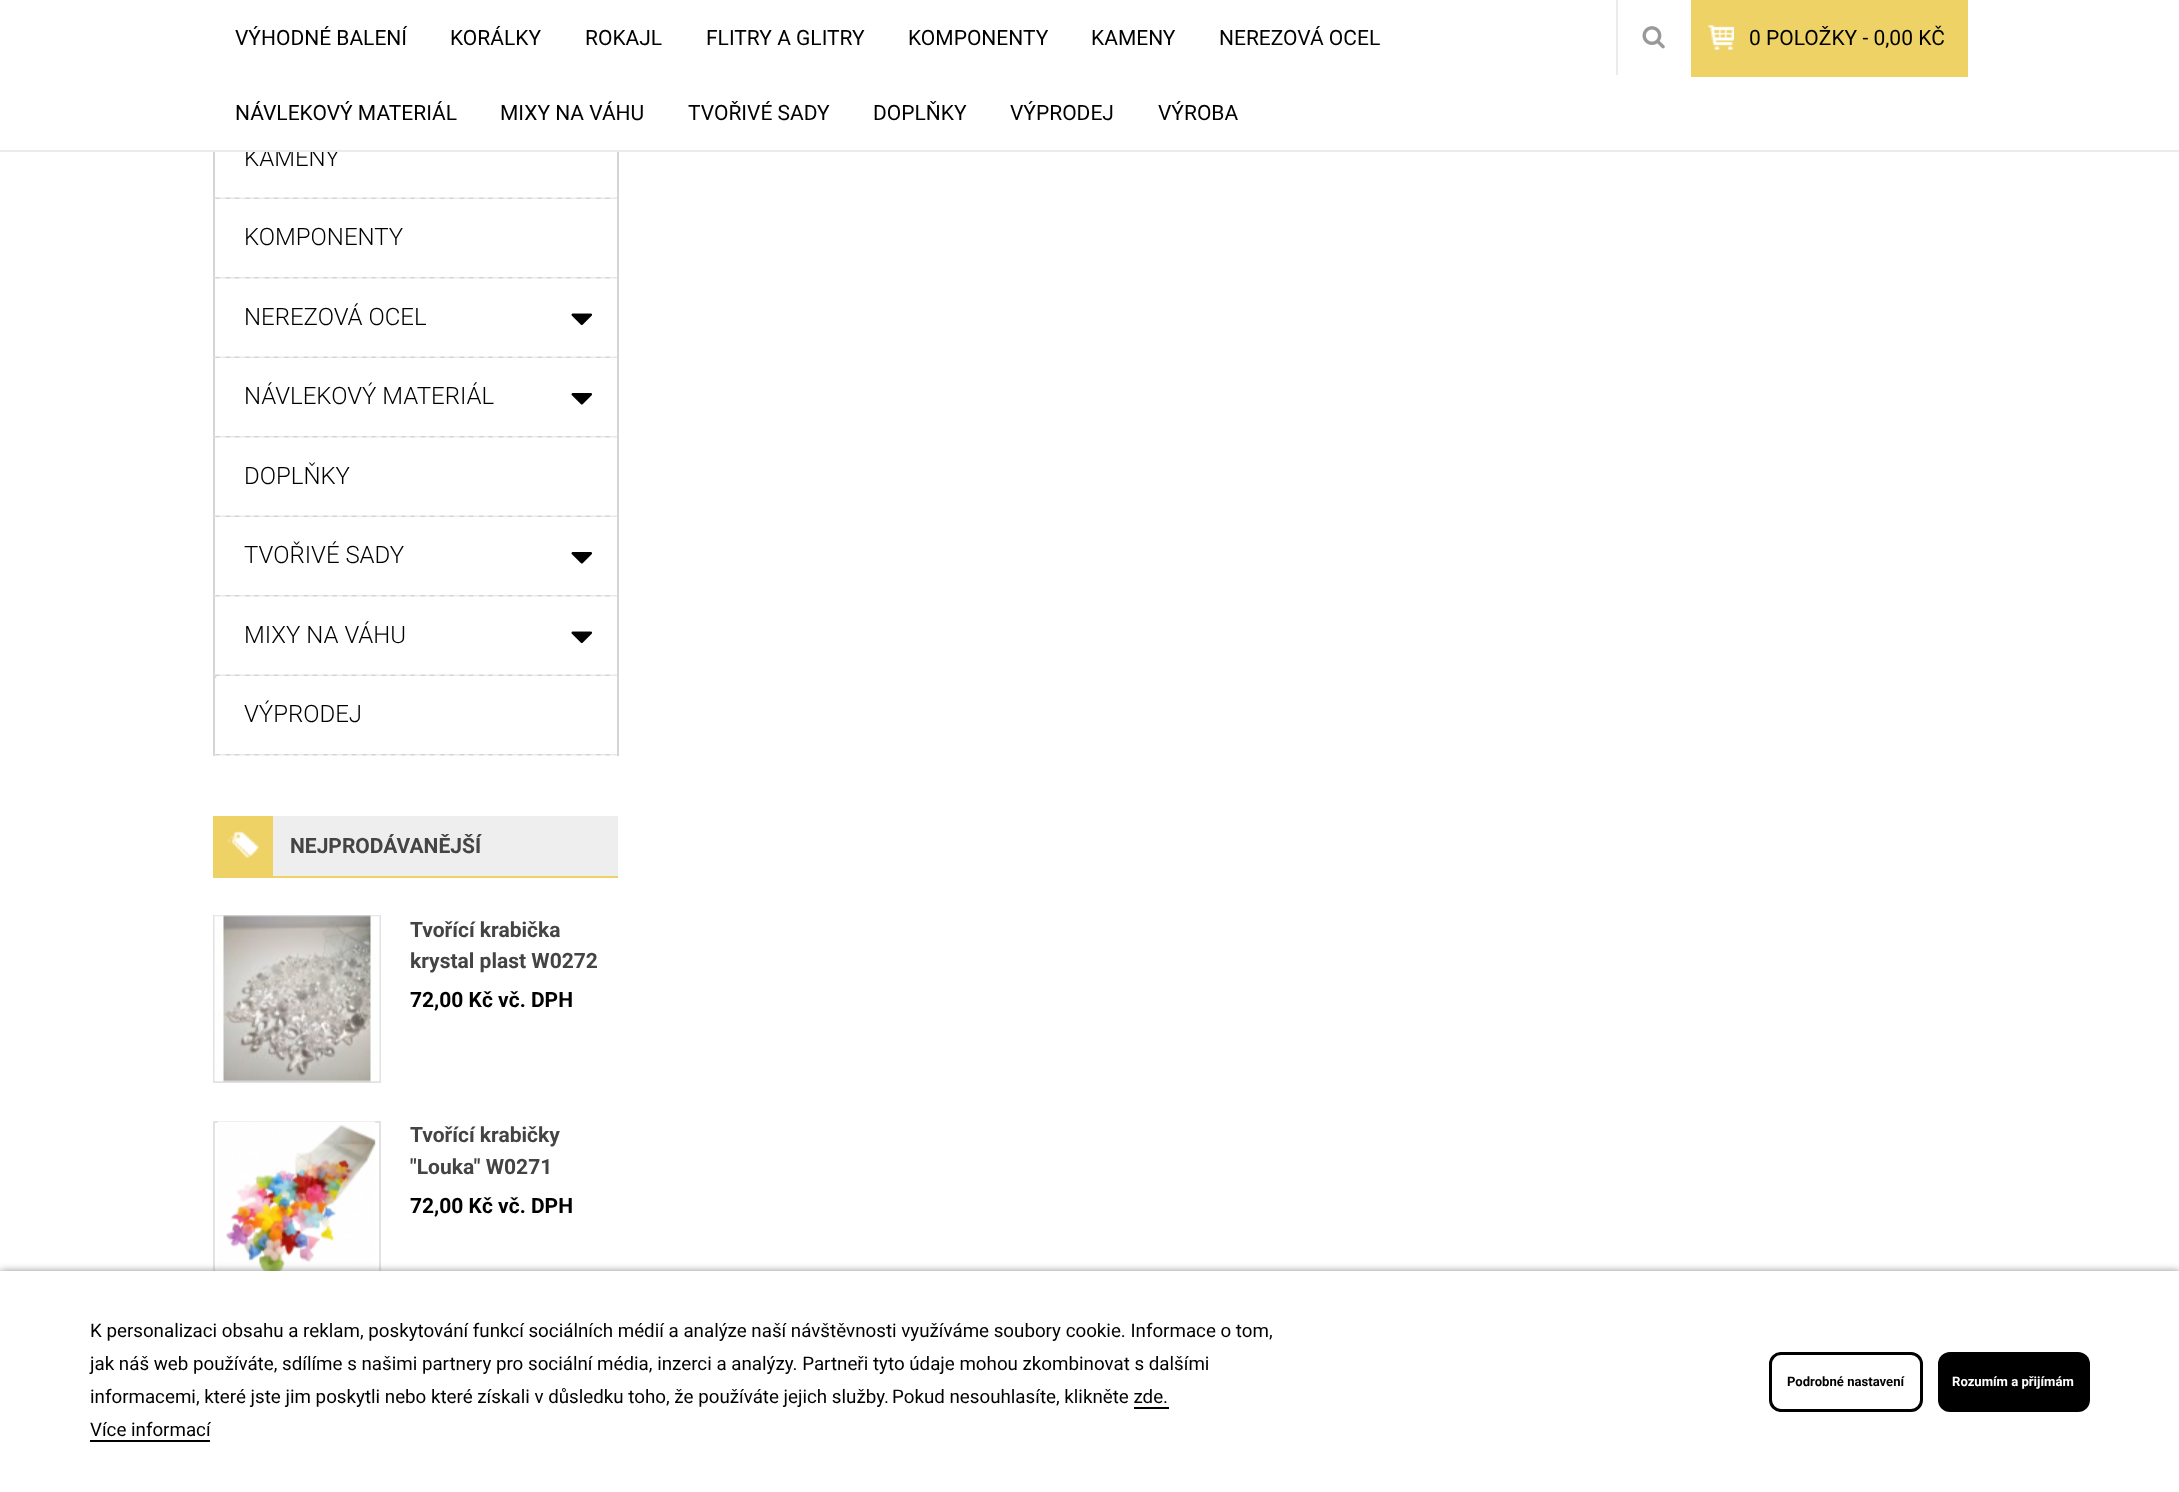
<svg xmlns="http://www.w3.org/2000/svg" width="2179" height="1492">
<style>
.a{font:21px Roboto;fill:#000}
.b{font:300 24px Roboto;fill:#000}
.c{font:bold 21px Roboto;fill:#444}
.d{font:bold 21px Roboto;fill:#000}
.e{font:18.75px Roboto;fill:#000}
.f{font:bold 13.1px Roboto;fill:#000}
.g{font:bold 13.1px Roboto;fill:#fff}
</style>
<rect width="100%" height="100%" fill="#fff"/>
<path fill="#ebebeb" d="M1616 0h2v75H1616z"/>
<image href="1.png" x="1642" y="26" width="23" height="23"/>
<path fill="#eed265" d="M1691 0h277v77H1691z"/>
<image href="2.png" x="1708" y="25" width="26" height="25"/>
<path fill="#d6d4d4" d="M617 152h2v604H617z"/>
<path fill="#d6d4d4" d="M213 152h2v525H213z"/>
<image href="3.png" x="214" y="197" width="403" height="2"/>
<image href="4.png" x="214" y="277" width="403" height="2"/>
<image href="3.png" x="214" y="356" width="403" height="2"/>
<image href="5.png" x="571" y="313" width="22" height="13"/>
<image href="4.png" x="214" y="436" width="403" height="2"/>
<image href="6.png" x="571" y="393" width="22" height="12"/>
<image href="3.png" x="214" y="515" width="403" height="2"/>
<image href="4.png" x="214" y="595" width="403" height="2"/>
<image href="6.png" x="571" y="552" width="22" height="12"/>
<image href="3.png" x="214" y="674" width="403" height="2"/>
<image href="5.png" x="571" y="631" width="22" height="13"/>
<image href="7.png" x="214" y="676" width="3" height="2"/>
<path fill="#d6d4d4" d="M213 677h2v79H213z"/>
<image href="4.png" x="214" y="754" width="403" height="2"/>
<path fill="#eee" d="M273 816h345v60H273z"/>
<path fill="#eed265" d="M213 876h405v2H213z"/>
<path fill="#eed265" d="M213 816h60v60H213z"/>
<image href="8.png" x="227" y="831" width="32" height="28"/>
<path fill="none" stroke="#e3e1e1" stroke-width="2" d="M214 916h166v166H214z"/>
<image href="9.png" x="214" y="915" width="166" height="167"/>
<path fill="none" stroke="#e3e1e1" stroke-width="2" d="M214 1122h166v166H214z"/>
<image href="10.png" x="217" y="1121" width="159" height="150"/>
<path fill="#707070" filter="blur(4px)" d="M0 1272h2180v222H0z"/>
<path fill="#fff" d="M0 1271h2179v221H0z"/>
<path fill="#000" d="M1134 1407h35v2H1134z"/>
<path fill="#000" d="M90 1440h120v2H90z"/>
<rect fill="none" stroke="#000" stroke-width="3" x="1770.5" y="1353.5" width="151" height="57" rx="10.5"/>
<rect fill="#000" x="1938" y="1352" width="152" height="60" rx="12"/>
<text class="a" x="235" y="45">VÝHODNÉ BALENÍ</text>
<text class="a" x="450" y="45">KORÁLKY</text>
<text class="a" x="585" y="45">ROKAJL</text>
<text class="a" x="706" y="45">FLITRY A GLITRY</text>
<text class="a" x="908" y="45">KOMPONENTY</text>
<text class="a" x="1091" y="45">KAMENY</text>
<text class="a" x="1219" y="45">NEREZOVÁ OCEL</text>
<text class="a" x="235" y="120">NÁVLEKOVÝ MATERIÁL</text>
<text class="a" x="500" y="120">MIXY NA VÁHU</text>
<text class="a" x="688" y="120">TVOŘIVÉ SADY</text>
<text class="a" x="873" y="120">DOPLŇKY</text>
<text class="a" x="1010" y="120">VÝPRODEJ</text>
<text class="a" x="1158" y="120">VÝROBA</text>
<text class="a" x="1749" y="45">0 POLOŽKY - 0,00 KČ</text>
<text class="b" x="244" y="166">KAMENY</text>
<path fill="#ebebeb" d="M0 150h2179v2H0z"/>
<path fill="#fff" d="M245 148h94v2H245z"/>
<text class="b" x="244" y="245">KOMPONENTY</text>
<text class="b" x="244" y="325">NEREZOVÁ OCEL</text>
<text class="b" x="244" y="404">NÁVLEKOVÝ MATERIÁL</text>
<text class="b" x="244" y="484">DOPLŇKY</text>
<text class="b" x="244" y="563">TVOŘIVÉ SADY</text>
<text class="b" x="244" y="643">MIXY NA VÁHU</text>
<text class="b" x="244" y="722">VÝPRODEJ</text>
<text class="c" x="290" y="853">NEJPRODÁVANĚJŠÍ</text>
<text class="c" x="410" y="937">Tvořící krabička</text>
<text class="c" x="410" y="968">krystal plast W0272</text>
<text class="d" x="410" y="1007">72,00 Kč vč. DPH</text>
<text class="c" x="410" y="1142">Tvořící krabičky</text>
<text class="c" x="410" y="1174">"Louka" W0271</text>
<text class="d" x="410" y="1213">72,00 Kč vč. DPH</text>
<text class="e" x="90" y="1337">K personalizaci obsahu a reklam, poskytování funkcí sociálních médií a analýze naší návštěvnosti využíváme soubory cookie. Informace o tom,</text>
<text class="e" x="90" y="1370">jak náš web používáte, sdílíme s našimi partnery pro sociální média, inzerci a analýzy. Partneři tyto údaje mohou zkombinovat s dalšími</text>
<text class="e" x="90" y="1403">informacemi, které jste jim poskytli nebo které získali v důsledku toho, že používáte jejich služby.</text>
<text class="e" x="892" y="1403">Pokud nesouhlasíte, klikněte zde.</text>
<text class="e" x="90" y="1436">Více informací</text>
<text class="f" x="1787" y="1386">Podrobné nastavení</text>
<text class="g" x="1952" y="1386">Rozumím a přijímám</text>
</svg>
